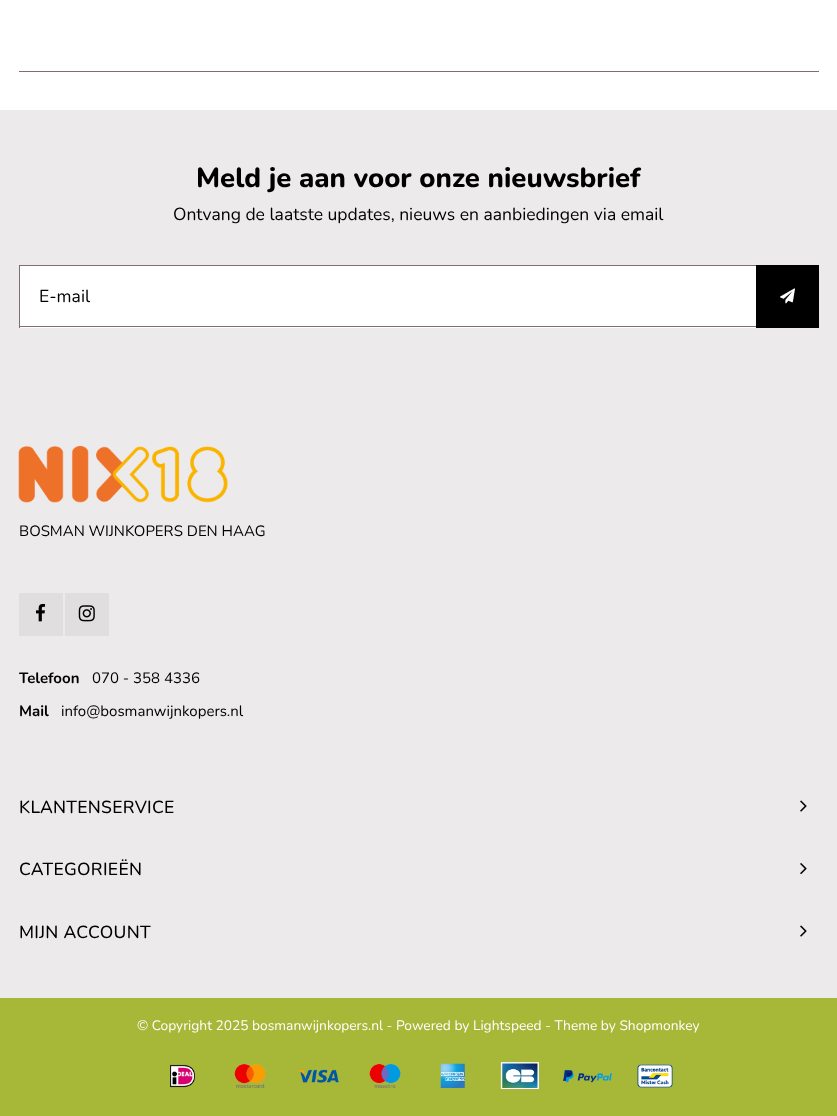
<svg xmlns="http://www.w3.org/2000/svg" width="837" height="1116">
<style>
.a{font:800 27.5px Nunito;fill:#000}
.b{font:17.5px Nunito;fill:#000}
.c{font:15px Nunito;fill:#000}
.d{font:bold 15px Nunito;fill:#000}
.e{font:500 17.5px Nunito;letter-spacing:0.3px;fill:#000}
.f{font:13.75px Nunito;fill:#fff}
</style>
<rect width="100%" height="100%" fill="#fff"/>
<path fill="#806d6d" d="M19 71h800v1H19z"/>
<path fill="#eceaea" d="M0 110h837v888H0z"/>
<path fill="#fff" d="M20 266h736v62H20z"/>
<path fill="#806d6d" d="M19 265h737v1H19z"/>
<path fill="#806d6d" d="M19 326h737v1H19z"/>
<path fill="#806d6d" d="M19 265h1v63H19z"/>
<path fill="#000" d="M756 265h63v63H756z"/>
<image href="1.png" x="780" y="288" width="15" height="16"/>
<image href="2.png" x="18" y="446" width="210" height="57"/>
<path fill="#e0dede" d="M19 593h44v43H19z"/>
<image href="3.png" x="36" y="603" width="10" height="19"/>
<path fill="#e0dede" d="M65 593h44v43H65z"/>
<image href="4.png" x="78" y="605" width="17" height="17"/>
<image href="5.png" x="800" y="800" width="7" height="12"/>
<image href="6.png" x="800" y="863" width="7" height="12"/>
<image href="5.png" x="800" y="925" width="7" height="12"/>
<path fill="#a7b738" d="M0 998h837v118H0z"/>
<image href="7.png" x="170" y="1064" width="25" height="24"/>
<image href="8.png" x="234" y="1064" width="32" height="24"/>
<image href="9.png" x="296" y="1069" width="43" height="14"/>
<image href="10.png" x="369" y="1064" width="32" height="24"/>
<image href="11.png" x="440" y="1063" width="25" height="25"/>
<image href="12.png" x="500" y="1062" width="39" height="27"/>
<image href="13.png" x="563" y="1070" width="49" height="13"/>
<image href="14.png" x="637" y="1064" width="36" height="24"/>
<text class="a" x="196" y="187">Meld je aan voor onze nieuwsbrief</text>
<text class="b" x="173" y="220">Ontvang de laatste updates, nieuws en aanbiedingen via email</text>
<text class="b" x="39" y="302">E-mail</text>
<text class="c" x="19" y="536">BOSMAN WIJNKOPERS DEN HAAG</text>
<text class="d" x="19" y="683">Telefoon</text>
<text class="c" x="92" y="683">070 - 358 4336</text>
<text class="d" x="19" y="716">Mail</text>
<text class="c" x="61" y="716">info@bosmanwijnkopers.nl</text>
<text class="e" x="19" y="813">KLANTENSERVICE</text>
<text class="e" x="19" y="875">CATEGORIEËN</text>
<text class="e" x="19" y="938">MIJN ACCOUNT</text>
<text class="f" x="137" y="1030">© Copyright 2025 bosmanwijnkopers.nl - Powered by Lightspeed - Theme by Shopmonkey</text>
</svg>
